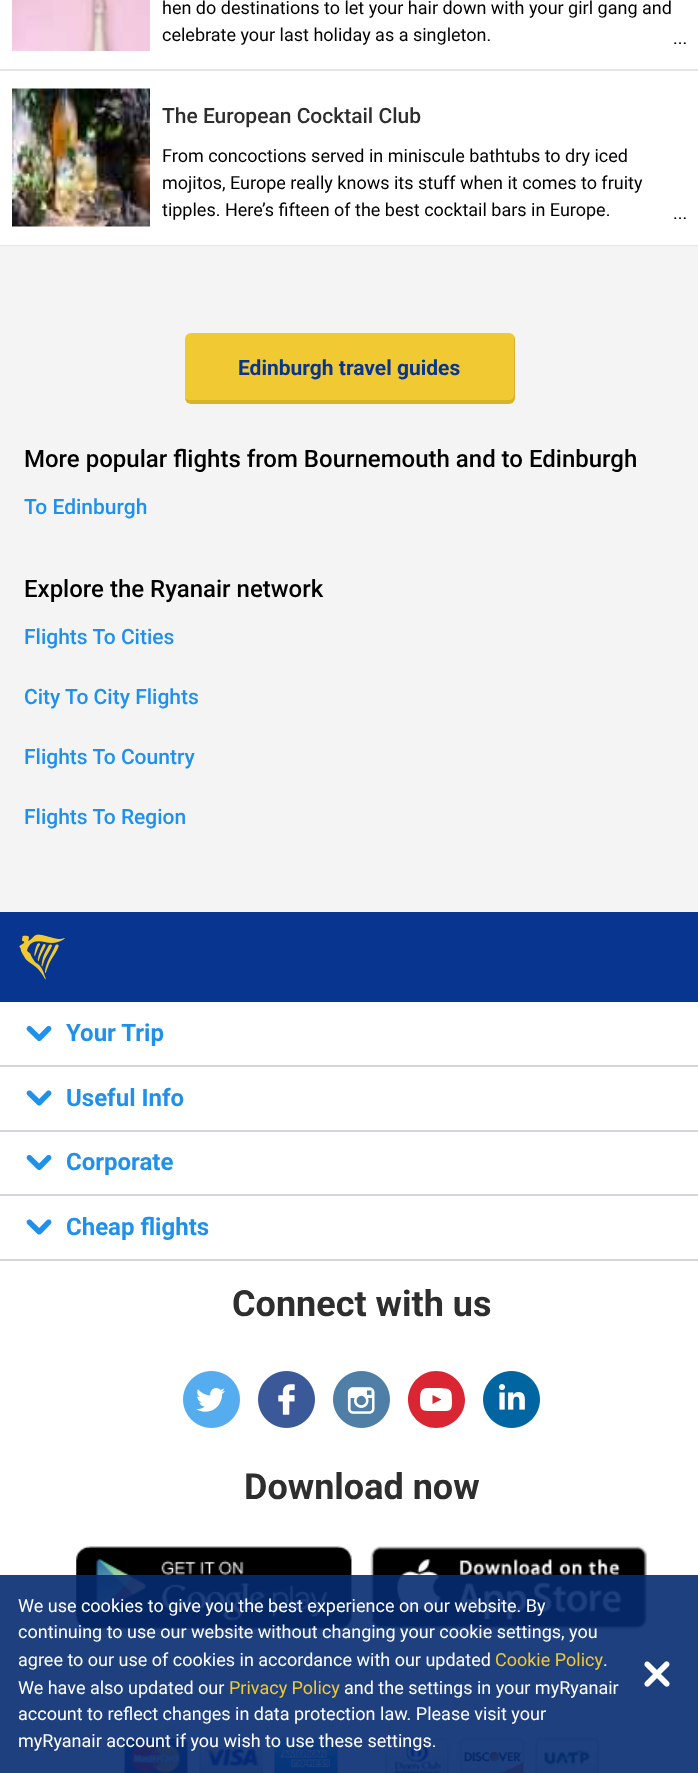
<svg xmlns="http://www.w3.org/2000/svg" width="698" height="1773">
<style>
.a{font:18px Roboto;fill:#000}
.b{font:500 21px Roboto;fill:#2e2e2e}
.c{font:bold 21px Roboto;fill:#073590}
.d{font:500 24px Roboto;fill:#000}
.e{font:500 21px Roboto;fill:#2091eb}
.f{font:bold 24px Roboto;fill:#2091eb}
.g{font:bold 36px Roboto;fill:#2e2e2e}
.h{font:18px Roboto;fill:#fff}
.i{font:18px Roboto;fill:#f1c933}
</style>
<rect width="100%" height="100%" fill="#f4f4f4"/>
<path fill="#fff" d="M0 0h698v69H0z"/>
<path fill="#e5e5e5" d="M0 69h698v2H0z"/>
<image href="1.png" x="12" y="0" width="138" height="51"/>
<path fill="#fff" d="M0 71h698v174H0z"/>
<path fill="#e5e5e5" d="M0 245h698v1H0z"/>
<image href="2.png" x="12" y="88" width="138" height="139"/>
<rect fill="#f1c933" x="185" y="333" width="330" height="71" rx="6"/>
<path fill="#0000001a" d="M185 398c0 3 3 6 6 6h318c3 0 6-3 6-6v-59c0-1 0-2-1-3v58c0 4-2 6-6 6h-318c-2 0-4-1-5-2z"/>
<path fill="#fff" d="M0 1002h698v771H0z"/>
<path fill="#073590" d="M0 912h698v90H0z"/>
<image href="3.png" x="19" y="934" width="46" height="46"/>
<path fill="#d2d6d9" d="M0 1065h698v2H0z"/>
<image href="4.png" x="26" y="1025" width="26" height="17"/>
<path fill="#d2d6d9" d="M0 1130h698v2H0z"/>
<image href="5.png" x="26" y="1090" width="26" height="16"/>
<path fill="#d2d6d9" d="M0 1194h698v2H0z"/>
<image href="4.png" x="26" y="1154" width="26" height="17"/>
<path fill="#d2d6d9" d="M0 1259h698v2H0z"/>
<image href="5.png" x="26" y="1219" width="26" height="16"/>
<image href="6.png" x="183" y="1371" width="57" height="57"/>
<image href="7.png" x="258" y="1371" width="57" height="57"/>
<image href="8.png" x="333" y="1371" width="57" height="57"/>
<path fill="#d92632" d="M432.5 1395v9l9-4.5z"/>
<path fill="#d92632" d="M436 1371c-15 0-28 13-28 29c0 15 13 28 28 28c16 0 29-13 29-28c0-16-13-29-29-29zm16 30c0 6 0 10-6 10h-10c-14 0-16 1-16-12c0-13 5-11 16-11c14 1 16-1 16 13z"/>
<image href="9.png" x="483" y="1371" width="57" height="57"/>
<image href="10.png" x="76" y="1546" width="276" height="84"/>
<image href="11.png" x="370" y="1546" width="278" height="84"/>
<image href="12.png" x="124" y="1738" width="64" height="35"/>
<image href="13.png" x="199" y="1738" width="64" height="35"/>
<image href="14.png" x="274" y="1738" width="64" height="35"/>
<image href="15.png" x="385" y="1738" width="64" height="35"/>
<image href="16.png" x="460" y="1738" width="64" height="35"/>
<image href="17.png" x="535" y="1738" width="64" height="35"/>
<path fill="#062b71e6" d="M0 1575h698v198H0z"/>
<image href="18.png" x="644" y="1661" width="26" height="26"/>
<text class="a" x="162" y="14">hen do destinations to let your hair down with your girl gang and</text>
<text class="a" x="162" y="41">celebrate your last holiday as a singleton.</text>
<text class="a" x="673" y="44">...</text>
<text class="b" x="162" y="123">The European Cocktail Club</text>
<text class="a" x="162" y="162">From concoctions served in miniscule bathtubs to dry iced</text>
<text class="a" x="162" y="189">mojitos, Europe really knows its stuff when it comes to fruity</text>
<text class="a" x="162" y="216">tipples. Here’s fifteen of the best cocktail bars in Europe.</text>
<text class="a" x="673" y="219">...</text>
<text class="c" x="238" y="375">Edinburgh travel guides</text>
<text class="d" x="24" y="467">More popular flights from Bournemouth and to Edinburgh</text>
<text class="e" x="24" y="514">To Edinburgh</text>
<text class="d" x="24" y="597">Explore the Ryanair network</text>
<text class="e" x="24" y="644">Flights To Cities</text>
<text class="e" x="24" y="704">City To City Flights</text>
<text class="e" x="24" y="764">Flights To Country</text>
<text class="e" x="24" y="824">Flights To Region</text>
<text class="f" x="66" y="1041">Your Trip</text>
<text class="f" x="66" y="1106">Useful Info</text>
<text class="f" x="66" y="1170">Corporate</text>
<text class="f" x="66" y="1235">Cheap flights</text>
<text class="g" x="232" y="1316">Connect with us</text>
<text class="g" x="244" y="1499">Download now</text>
<text class="h" x="18" y="1612">We use cookies to give you the best experience on our website. By</text>
<text class="h" x="18" y="1638">continuing to use our website without changing your cookie settings, you</text>
<text class="h" x="18" y="1666">agree to our use of cookies in accordance with our updated</text>
<text class="i" x="495" y="1666">Cookie Policy</text>
<text class="h" x="603" y="1666">.</text>
<text class="h" x="18" y="1694">We have also updated our</text>
<text class="i" x="229" y="1694">Privacy Policy</text>
<text class="h" x="344" y="1694">and the settings in your myRyanair</text>
<text class="h" x="18" y="1720">account to reflect changes in data protection law. Please visit your</text>
<text class="h" x="18" y="1747">myRyanair account if you wish to use these settings.</text>
</svg>
